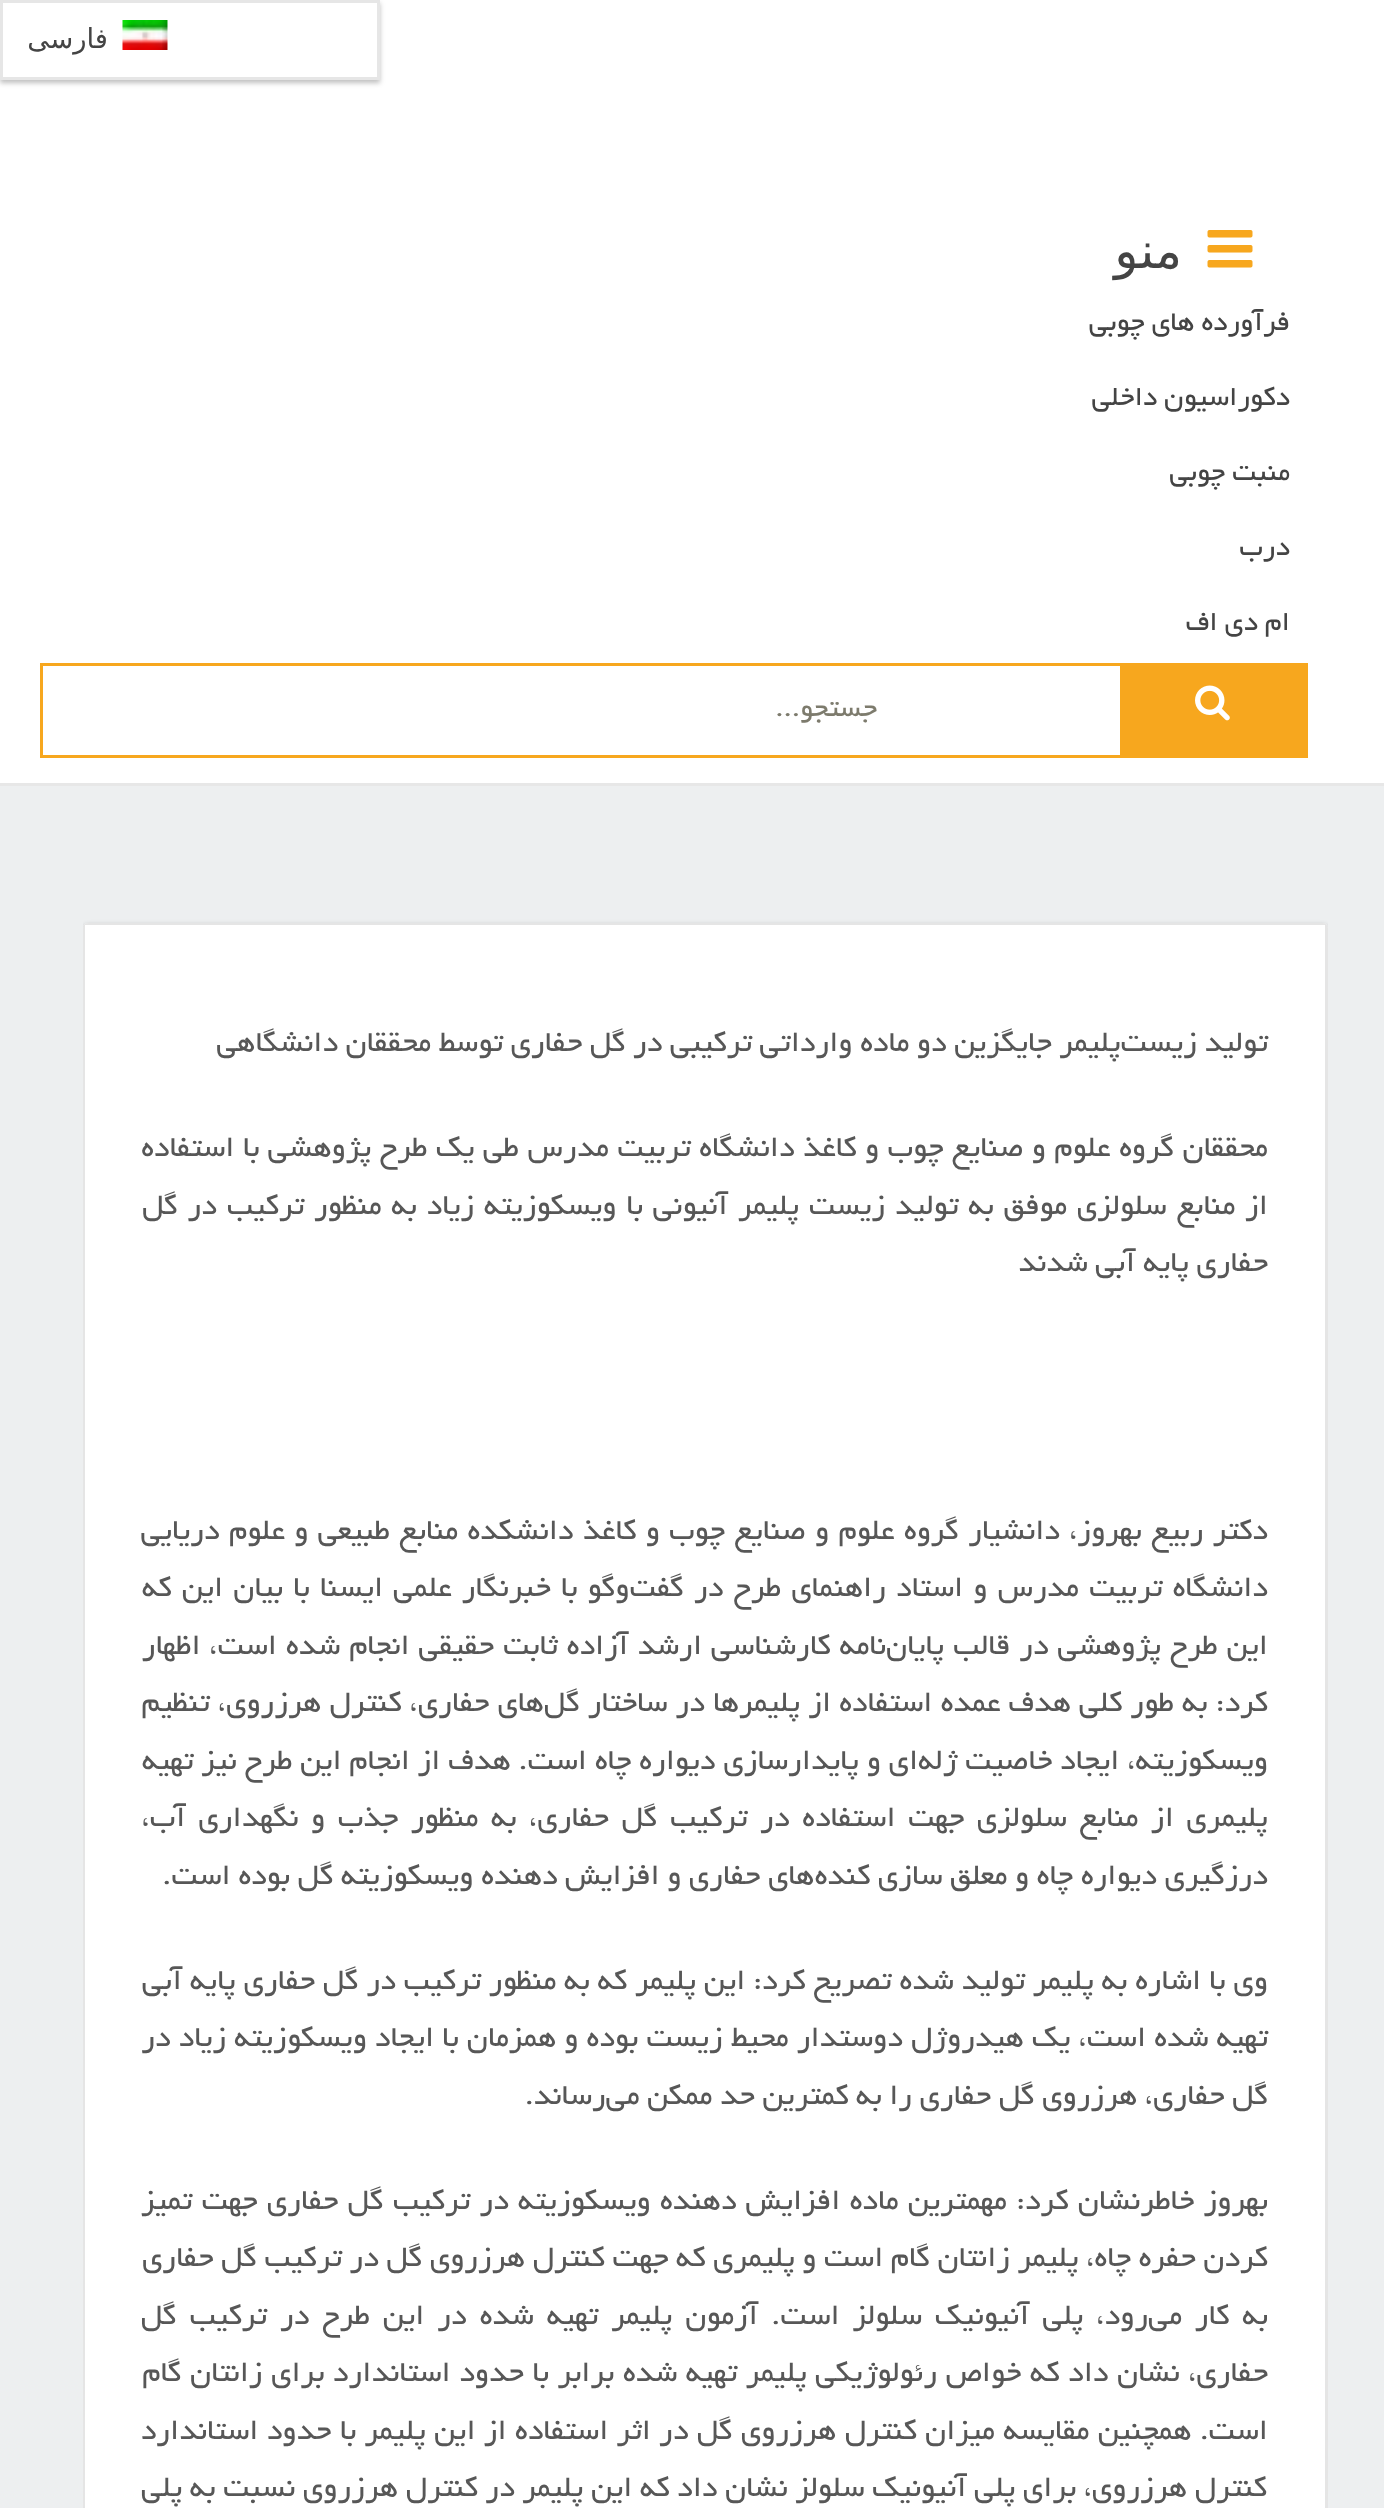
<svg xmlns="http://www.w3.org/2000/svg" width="1384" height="2508">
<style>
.a{font:27.5px DejaVu Sans;direction:rtl;fill:#444}
.b{font:50px DejaVu Sans;direction:rtl;fill:#444}
.c{font:30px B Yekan;direction:rtl;fill:#444}
.d{font:30px B Yekan;direction:rtl;fill:#7d7b6d}
.e{font:32.5px B Yekan;direction:rtl;fill:#575757}
</style>
<defs>
<clipPath id="clip1"><path d="M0 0h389v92h-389zm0 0h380v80h-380z" clip-rule="evenodd"/></clipPath>
<clipPath id="clip2"><path d="M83 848h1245v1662H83z"/></clipPath>
</defs>
<rect width="100%" height="100%" fill="#edeff0"/>
<path fill="#fff" d="M0 0h1384v783H0z"/>
<path fill="#e7e7e7" d="M0 783h1384v3H0z"/>
<g clip-path="url(#clip1)">
<path fill="#00000040" filter="blur(2.5px)" d="M0 3h380v80H0z"/>
</g>
<path fill="none" stroke="#e6e6e6" stroke-width="3" d="M1.5 1.5h377v77H1.5z"/>
<image href="1.png" x="122" y="20" width="46" height="30"/>
<image href="2.png" x="1207" y="230" width="46" height="38"/>
<path fill="none" stroke="#f7a71e" stroke-width="3" d="M41.5 664.5h1265v92H41.5z"/>
<path fill="#f7a71e" d="M1120 666h185v89H1120z"/>
<image href="3.png" x="1195" y="685" width="35" height="36"/>
<g clip-path="url(#clip2)">
<rect fill="#00000040" filter="blur(2.5px)" x="83" y="925" width="1245" height="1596" rx="5"/>
</g>
<path fill="#fff" d="M88 923h1235c3 0 5 2 5 5v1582h-1245v-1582c0-3 2-5 5-5z"/>
<rect fill="none" stroke="#0000001a" stroke-width="3" x="84.5" y="924.5" width="1242" height="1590" rx="3.5"/>
<path fill="#fff" d="M85 925h1240v1583H85z"/>
<text class="a" x="108" y="48">فارسی</text>
<text class="b" x="1182" y="268">منو</text>
<text class="c" x="1290" y="330">فرآورده های چوبی</text>
<text class="c" x="1290" y="405">دکوراسیون داخلی</text>
<text class="c" x="1290" y="480">منبت چوبی</text>
<text class="c" x="1290" y="555">درب</text>
<text class="c" x="1290" y="630">ام دی اف</text>
<text class="d" x="877" y="716">جستجو...</text>
<text class="e" x="1268" y="1051">تولید زیست‌پلیمر جایگزین دو ماده وارداتی ترکیبی در گل حفاری توسط محققان دانشگاهی</text>
<text class="e" x="1268" y="1156" word-spacing="0.9">محققان گروه علوم و صنایع چوب و کاغذ دانشگاه تربیت مدرس طی یک طرح پژوهشی با استفاده</text>
<text class="e" x="1268" y="1214" word-spacing="2.25">از منابع سلولزی موفق به تولید زیست پلیمر آنیونی با ویسکوزیته زیاد به منظور ترکیب در گل</text>
<text class="e" x="1268" y="1271">حفاری پایه آبی شدند</text>
<text class="e" x="1268" y="1539" word-spacing="1.75">دکتر ربیع بهروز، دانشیار گروه علوم و صنایع چوب و کاغذ دانشکده منابع طبیعی و علوم دریایی</text>
<text class="e" x="1268" y="1596" word-spacing="2.6">دانشگاه تربیت مدرس و استاد راهنمای طرح در گفت‌وگو با خبرنگار علمی ایسنا با بیان این که</text>
<text class="e" x="1268" y="1654" word-spacing="1.4">این طرح پژوهشی در قالب پایان‌نامه کارشناسی ارشد آزاده ثابت حقیقی انجام شده است، اظهار</text>
<text class="e" x="1268" y="1711" word-spacing="0.5">کرد: به طور کلی هدف عمده استفاده از پلیمرها در ساختار گل‌های حفاری، کنترل هرزروی، تنظیم</text>
<text class="e" x="1268" y="1769" word-spacing="0.3">ویسکوزیته، ایجاد خاصیت ژله‌ای و پایدارسازی دیواره چاه است. هدف از انجام این طرح نیز تهیه</text>
<text class="e" x="1268" y="1826" word-spacing="5.1">پلیمری از منابع سلولزی جهت استفاده در ترکیب گل حفاری، به منظور جذب و نگهداری آب،</text>
<text class="e" x="1268" y="1884">درزگیری دیواره چاه و معلق سازی کنده‌های حفاری و افزایش دهنده ویسکوزیته گل بوده است.</text>
<text class="e" x="1268" y="1989" word-spacing="0.25">وی با اشاره به پلیمر تولید شده تصریح کرد: این پلیمر که به منظور ترکیب در گل حفاری پایه آبی</text>
<text class="e" x="1268" y="2046" word-spacing="0.5">تهیه شده است، یک هیدروژل دوستدار محیط زیست بوده و همزمان با ایجاد ویسکوزیته زیاد در</text>
<text class="e" x="1268" y="2104">گل حفاری، هرزروی گل حفاری را به کمترین حد ممکن می‌رساند.</text>
<text class="e" x="1268" y="2209" word-spacing="1.7">بهروز خاطرنشان کرد: مهمترین ماده افزایش دهنده ویسکوزیته در ترکیب گل حفاری جهت تمیز</text>
<text class="e" x="1268" y="2266">کردن حفره چاه، پلیمر زانتان گام است و پلیمری که جهت کنترل هرزروی گل در ترکیب گل حفاری</text>
<text class="e" x="1268" y="2324" word-spacing="5.4">به کار می‌رود، پلی آنیونیک سلولز است. آزمون پلیمر تهیه شده در این طرح در ترکیب گل</text>
<text class="e" x="1268" y="2381" word-spacing="1">حفاری، نشان داد که خواص رئولوژیکی پلیمر تهیه شده برابر با حدود استاندارد برای زانتان گام</text>
<text class="e" x="1268" y="2439" word-spacing="0.75">است. همچنین مقایسه میزان کنترل هرزروی گل در اثر استفاده از این پلیمر با حدود استاندارد</text>
<text class="e" x="1267" y="2496">کنترل هرزروی، برای پلی آنیونیک سلولز نشان داد که این پلیمر در کنترل هرزروی نسبت به پلی</text>
</svg>
